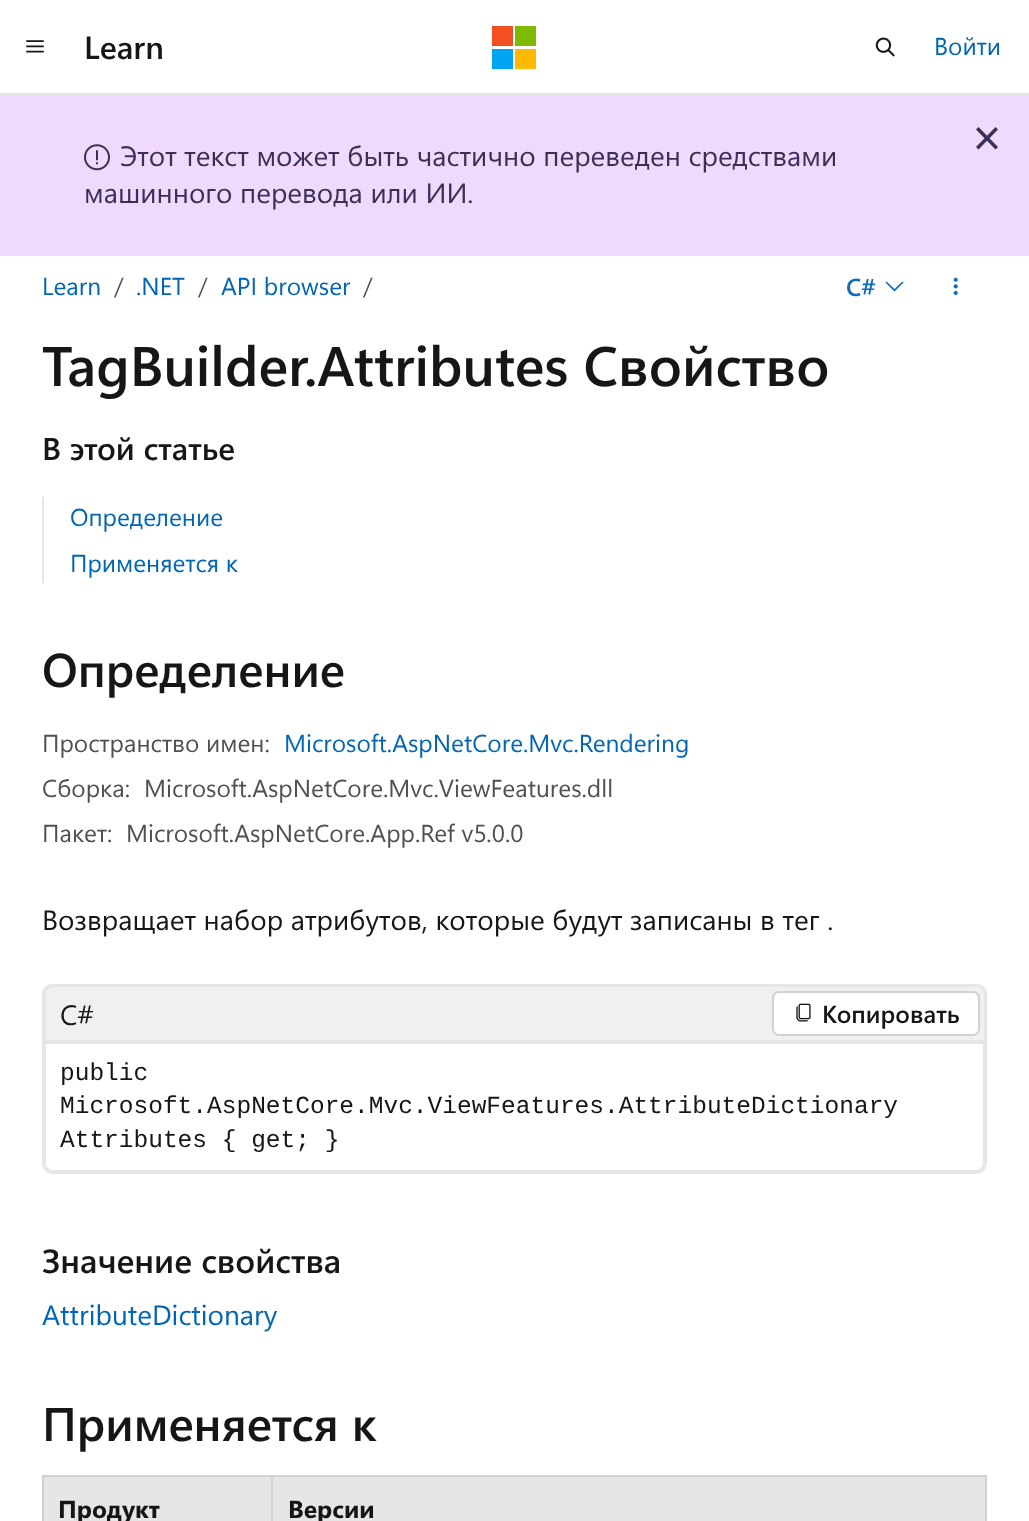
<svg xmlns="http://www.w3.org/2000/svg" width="1029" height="1521">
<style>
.a{font:600 32px Segoe UI;fill:#161616}
.b{font:24.5px Segoe UI;fill:#0065b3}
.c{font:28px Segoe UI;fill:#3b2e58}
.d{font:24.5px Segoe UI;fill:#505050}
.e{font:600 24.5px Segoe UI;fill:#0f6cbd}
.f{font:600 55.6px Segoe UI;fill:#161616}
.g{font:600 31.5px Segoe UI;fill:#161616}
.h{font:600 47.25px Segoe UI;fill:#161616}
.i{font:28px Segoe UI;fill:#161616}
.j{font:600 24.5px Segoe UI;fill:#161616}
.k{font:24.5px Liberation Mono;fill:#161616}
.l{font:600 33.4px Segoe UI;fill:#161616}
.m{font:28px Segoe UI;fill:#0065b3}
.n{font:bold 24.5px Segoe UI;fill:#161616}
</style>
<rect width="100%" height="100%" fill="#fff"/>
<path fill="#e6e6e6" d="M0 93h1029v2H0z"/>
<image href="1.png" x="26" y="40" width="18" height="13"/>
<path fill="#f25022" d="M492 26h21v20H492z"/>
<path fill="#7fba00" d="M515 26h21v20H515z"/>
<path fill="#00a4ef" d="M492 49h21v20H492z"/>
<path fill="#ffb900" d="M515 49h21v20H515z"/>
<image href="2.png" x="875" y="37" width="20" height="20"/>
<path fill="#efd9fd" d="M0 95h1029v161H0z"/>
<path fill="#3b2e58" d="M978.5 127l19.5 20l-2.5 2.5l-19.5-20z"/>
<path fill="#3b2e58" d="M995.5 127l2.5 2.5l-19.5 20l-2.5-2.5z"/>
<image href="3.png" x="84" y="144" width="26" height="27"/>
<path fill="#0f6cbd" d="M894.5 291.5l-9-9l1-1l8 7.5l8-7.5l1 1z"/>
<image href="4.png" x="953" y="277" width="5" height="18"/>
<path fill="#e6e6e6" d="M42 497h2v86H42z"/>
<path fill="#f0f0f0" d="M53 984h923c6 0 11 5 11 11v45h-945v-45c0-6 5-11 11-11z"/>
<path fill="#e6e6e6" fill-rule="evenodd" d="M52 984h924c6 0 11 4 11 10v46h-945v-46c0-6 5-10 10-10zm0 3h924c4 0 8 3 8 7v46h-938v-46c0-4 3-7 6-7z"/>
<rect fill="#fff" stroke="#d1d1d1" stroke-width="2" x="773" y="992" width="206" height="43" rx="6"/>
<image href="5.png" x="796" y="1003" width="15" height="19"/>
<path fill="none" stroke="#e6e6e6" stroke-width="4" d="M44 1042h941v121c0 5-4 9-9 9h-923c-5 0-9-4-9-9z"/>
<path fill="#d1d1d1" d="M42 1475h945v2H42z"/>
<path fill="#d1d1d1" d="M985 1475h2v46H985z"/>
<path fill="#d1d1d1" d="M42 1475h2v46H42z"/>
<path fill="#e6e6e6" d="M44 1477h941v44H44z"/>
<path fill="#d1d1d1" d="M271 1475h2v46H271z"/>
<text class="a" x="84" y="59">Learn</text>
<text class="b" x="934" y="55">Войти</text>
<text class="c" x="120" y="166">Этот текст может быть частично переведен средствами</text>
<text class="c" x="84" y="203">машинного перевода или ИИ.</text>
<text class="b" x="42" y="295">Learn</text>
<text class="d" x="114" y="295">/</text>
<text class="b" x="136" y="295">.NET</text>
<text class="d" x="198" y="295">/</text>
<text class="b" x="221" y="295">API browser</text>
<text class="d" x="363" y="295">/</text>
<text class="e" x="846" y="296">C#</text>
<text class="f" x="42" y="386">TagBuilder.Attributes Свойство</text>
<text class="g" x="42" y="460">В этой статье</text>
<text class="b" x="70" y="526">Определение</text>
<text class="b" x="70" y="572">Применяется к</text>
<text class="h" x="42" y="687">Определение</text>
<text class="d" x="42" y="752">Пространство имен:</text>
<text class="b" x="284" y="752">Microsoft.AspNetCore.Mvc.Rendering</text>
<text class="d" x="42" y="797">Сборка:</text>
<text class="d" x="144" y="797">Microsoft.AspNetCore.Mvc.ViewFeatures.dll</text>
<text class="d" x="42" y="842">Пакет:</text>
<text class="d" x="126" y="842">Microsoft.AspNetCore.App.Ref v5.0.0</text>
<text class="i" x="42" y="930">Возвращает набор атрибутов, которые будут записаны в тег .</text>
<text class="i" x="60" y="1025">C#</text>
<text class="j" x="822" y="1023">Копировать</text>
<text class="k" x="60" y="1080">public</text>
<text class="k" x="60" y="1113">Microsoft.AspNetCore.Mvc.ViewFeatures.AttributeDictionary</text>
<text class="k" x="60" y="1147">Attributes { get; }</text>
<text class="l" x="42" y="1273">Значение свойства</text>
<text class="m" x="42" y="1325">AttributeDictionary</text>
<text class="h" x="42" y="1441">Применяется к</text>
<text class="n" x="58" y="1518">Продукт</text>
<text class="n" x="288" y="1518">Версии</text>
</svg>
